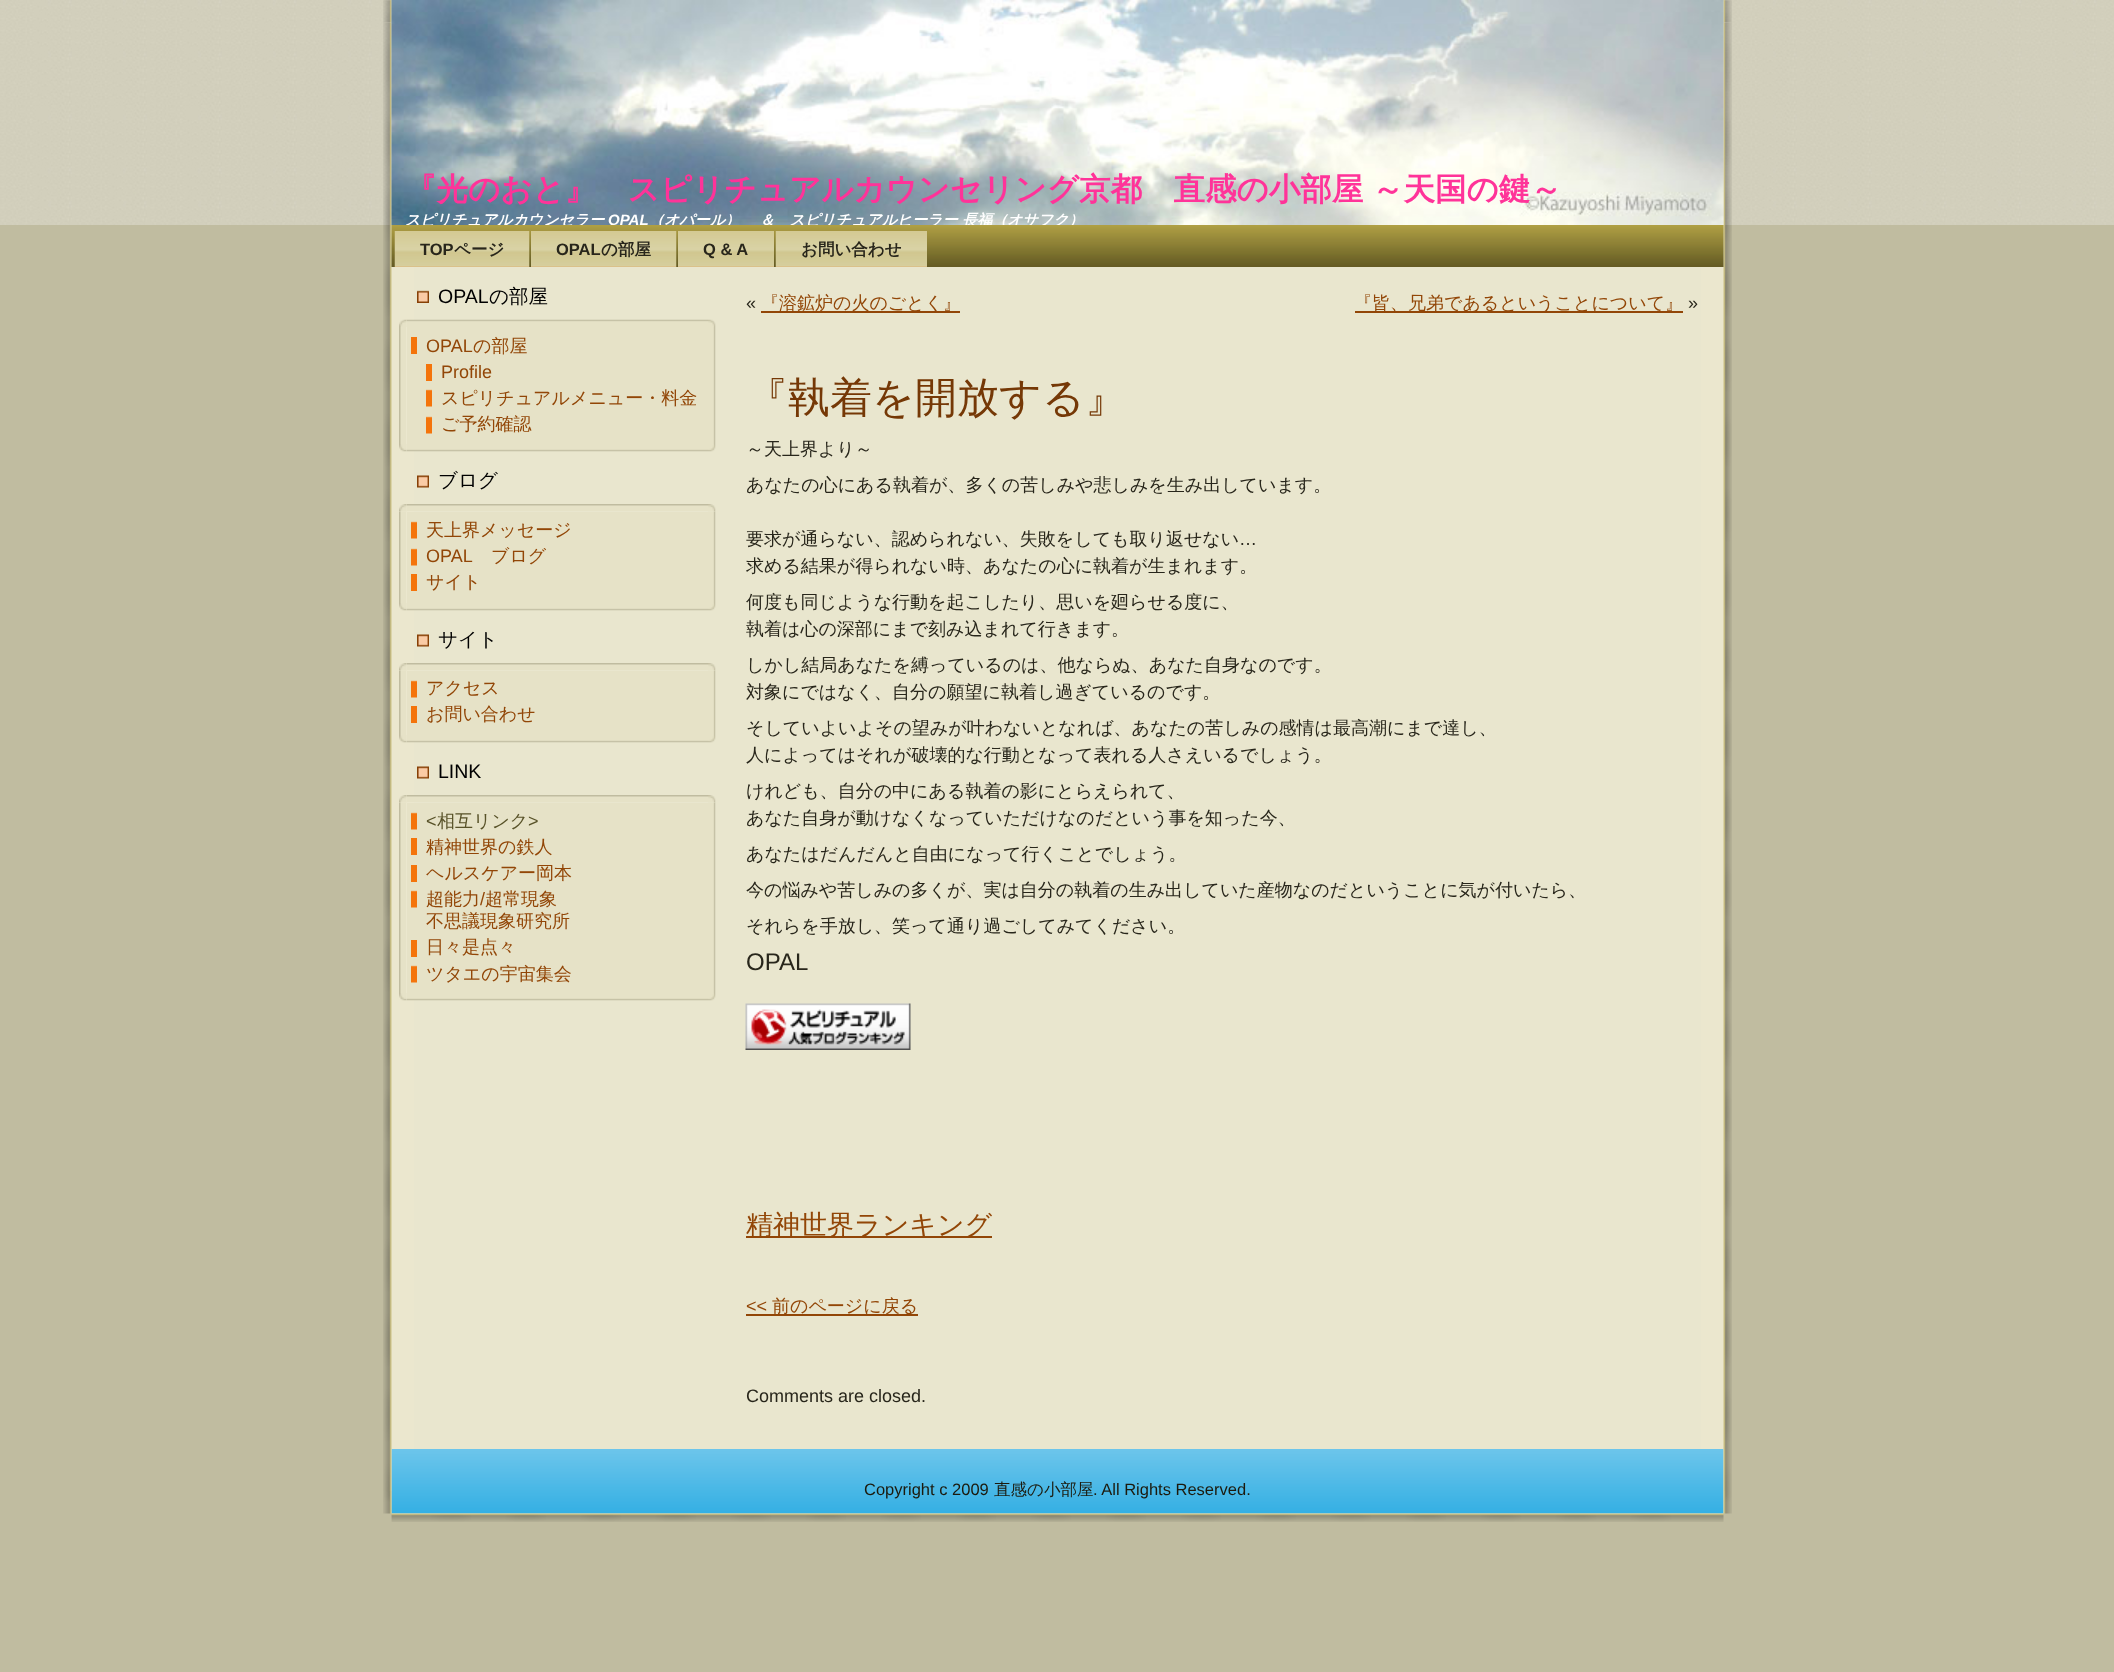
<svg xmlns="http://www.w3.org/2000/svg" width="2114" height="1672">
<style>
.a{font:bold 31.5px WenQuanYi Zen Hei;fill:#f39}
.b{font:italic bold 15px WenQuanYi Zen Hei;fill:#fff}
.c{font:italic bold 15px Liberation Sans;fill:#fff}
.d{font:bold 16.5px Liberation Sans;fill:#28261b}
.e{font:bold 16.5px WenQuanYi Zen Hei;fill:#28261b}
.f{font:19.5px Liberation Sans;fill:#000}
.g{font:500 19.5px WenQuanYi Zen Hei;fill:#000}
.h{font:18px Liberation Sans;fill:#924607}
.i{font:500 18px WenQuanYi Zen Hei;fill:#924607}
.j{font:18px Liberation Sans;fill:#585228}
.k{font:500 18px WenQuanYi Zen Hei;fill:#585228}
.l{font:18px Liberation Sans;fill:#28261b}
.m{font:500 42px WenQuanYi Zen Hei;fill:#753806}
.n{font:500 18px WenQuanYi Zen Hei;fill:#28261b}
.o{font:24px Liberation Sans;fill:#28261b}
.p{font:500 27px WenQuanYi Zen Hei;fill:#924607}
.q{font:16.5px Liberation Sans;fill:#1c1a0d}
.r{font:500 16.5px WenQuanYi Zen Hei;fill:#1c1a0d}
</style>
<rect width="100%" height="100%" fill="#c0bca0"/>
<image href="1.png" x="0" y="0" width="2114" height="225"/>
<image href="2.png" x="383" y="0" width="9" height="23"/>
<image href="3.png" x="1723" y="0" width="9" height="23"/>
<image href="4.png" x="383" y="22" width="31" height="1469"/>
<image href="34.png" x="1701" y="22" width="31" height="1469"/>
<image href="5.png" x="391" y="0" width="1333" height="225"/>
<path fill="#e9e6ce" d="M414 267h1287v1182H414z"/>
<image href="11.png" x="417" y="290" width="12" height="13"/>
<image href="12.png" x="399" y="319" width="8" height="8"/>
<image href="13.png" x="406" y="319" width="302" height="8"/>
<image href="14.png" x="708" y="319" width="8" height="8"/>
<image href="15.png" x="399" y="327" width="7" height="117"/>
<path fill="#e6e2c7" d="M407 327h301v117H407z"/>
<image href="16.png" x="708" y="327" width="8" height="117"/>
<path fill="#f4740b" d="M411 337h6v17H411z"/>
<path fill="#f4740b" d="M426 364h6v17H426z"/>
<image href="17.png" x="426" y="389" width="6" height="18"/>
<image href="17.png" x="426" y="416" width="6" height="18"/>
<image href="18.png" x="399" y="444" width="8" height="8"/>
<image href="19.png" x="406" y="444" width="302" height="8"/>
<image href="20.png" x="708" y="444" width="8" height="8"/>
<image href="21.png" x="417" y="475" width="12" height="13"/>
<image href="22.png" x="399" y="504" width="8" height="8"/>
<image href="23.png" x="406" y="504" width="302" height="7"/>
<image href="24.png" x="708" y="504" width="8" height="8"/>
<image href="25.png" x="399" y="511" width="7" height="92"/>
<path fill="#e6e2c7" d="M407 512h301v91H407z"/>
<image href="26.png" x="708" y="511" width="8" height="92"/>
<image href="17.png" x="411" y="521" width="6" height="18"/>
<image href="17.png" x="411" y="548" width="6" height="18"/>
<path fill="#f4740b" d="M411 574h6v17H411z"/>
<image href="18.png" x="399" y="603" width="8" height="8"/>
<image href="19.png" x="406" y="603" width="302" height="8"/>
<image href="20.png" x="708" y="603" width="8" height="8"/>
<image href="21.png" x="417" y="634" width="12" height="13"/>
<image href="22.png" x="399" y="663" width="8" height="8"/>
<image href="23.png" x="406" y="663" width="302" height="7"/>
<image href="24.png" x="708" y="663" width="8" height="8"/>
<image href="27.png" x="399" y="670" width="7" height="65"/>
<path fill="#e6e2c7" d="M407 671h301v64H407z"/>
<image href="28.png" x="708" y="670" width="8" height="65"/>
<image href="17.png" x="411" y="680" width="6" height="18"/>
<path fill="#f4740b" d="M411 706h6v17H411z"/>
<image href="18.png" x="399" y="735" width="8" height="8"/>
<image href="19.png" x="406" y="735" width="302" height="8"/>
<image href="20.png" x="708" y="735" width="8" height="8"/>
<image href="21.png" x="417" y="766" width="12" height="13"/>
<image href="22.png" x="399" y="795" width="8" height="8"/>
<image href="23.png" x="406" y="795" width="302" height="7"/>
<image href="24.png" x="708" y="795" width="8" height="8"/>
<image href="29.png" x="399" y="802" width="7" height="191"/>
<path fill="#e6e2c7" d="M407 803h301v190H407z"/>
<image href="30.png" x="708" y="802" width="8" height="191"/>
<image href="17.png" x="411" y="812" width="6" height="18"/>
<path fill="#f4740b" d="M411 838h6v17H411z"/>
<path fill="#f4740b" d="M411 865h6v17H411z"/>
<image href="17.png" x="411" y="890" width="6" height="18"/>
<path fill="#f4740b" d="M411 940h6v17H411z"/>
<image href="17.png" x="411" y="965" width="6" height="18"/>
<image href="18.png" x="399" y="993" width="8" height="8"/>
<image href="31.png" x="406" y="993" width="302" height="8"/>
<image href="20.png" x="708" y="993" width="8" height="8"/>
<path fill="#924607" d="M761 311h199v2H761z"/>
<path fill="#924607" d="M1355 311h328v2H1355z"/>
<image href="32.png" x="745" y="1003" width="166" height="47"/>
<path fill="#924607" d="M746 1236h246v2H746z"/>
<path fill="#924607" d="M746 1314h172v2H746z"/>
<image href="35.png" x="383" y="1491" width="31" height="31"/>
<image href="36.png" x="414" y="1513" width="1287" height="9"/>
<image href="37.png" x="1701" y="1491" width="31" height="31"/>
<image href="33.png" x="391" y="1449" width="1333" height="65"/>
<text class="a" x="405" y="200">『光のおと』　スピリチュアルカウンセリング京都　直感の小部屋</text>
<text class="a" x="1372" y="200">～天国の鍵～</text>
<text class="b" x="405" y="225">スピリチュアルカウンセラー</text>
<text class="c" x="608" y="225">OPAL</text>
<text class="b" x="649" y="225">（オパール）　 ＆　スピリチュアルヒーラー 長福（オサフク）</text>
<image href="6.png" x="391" y="225" width="1333" height="42"/>
<image href="7.png" x="394" y="231" width="136" height="36"/>
<text class="d" x="420" y="255">TOP</text>
<text class="e" x="454" y="255">ページ</text>
<image href="8.png" x="531" y="231" width="146" height="36"/>
<text class="d" x="556" y="255">OPAL</text>
<text class="e" x="601" y="255">の部屋</text>
<image href="9.png" x="678" y="231" width="96" height="36"/>
<text class="d" x="703" y="255">Q &amp; A</text>
<image href="10.png" x="775" y="231" width="152" height="36"/>
<text class="e" x="801" y="255">お問い合わせ</text>
<text class="f" x="438" y="303">OPAL</text>
<text class="g" x="489" y="303">の部屋</text>
<text class="h" x="426" y="352">OPAL</text>
<text class="i" x="473" y="352">の部屋</text>
<text class="h" x="441" y="378">Profile</text>
<text class="i" x="441" y="404">スピリチュアルメニュー・料金</text>
<text class="i" x="441" y="430">ご予約確認</text>
<text class="g" x="438" y="487">ブログ</text>
<text class="i" x="426" y="536">天上界メッセージ</text>
<text class="h" x="426" y="562">OPAL</text>
<text class="i" x="491" y="562">ブログ</text>
<text class="i" x="426" y="588">サイト</text>
<text class="g" x="438" y="646">サイト</text>
<text class="i" x="426" y="694">アクセス</text>
<text class="i" x="426" y="720">お問い合わせ</text>
<text class="f" x="438" y="778">LINK</text>
<text class="j" x="426" y="827">&lt;</text>
<text class="k" x="437" y="827">相互リンク</text>
<text class="j" x="528" y="827">&gt;</text>
<text class="i" x="426" y="853">精神世界の鉄人</text>
<text class="i" x="426" y="879">ヘルスケアー岡本</text>
<text class="i" x="426" y="905">超能力</text>
<text class="h" x="480" y="905">/</text>
<text class="i" x="485" y="905">超常現象</text>
<text class="i" x="426" y="927">不思議現象研究所</text>
<text class="i" x="426" y="953">日々是点々</text>
<text class="i" x="426" y="980">ツタエの宇宙集会</text>
<text class="l" x="746" y="309">«</text>
<text class="i" x="761" y="309">『溶鉱炉の火のごとく』</text>
<text class="i" x="1354" y="309">『皆、兄弟であるということについて』</text>
<text class="l" x="1688" y="309">»</text>
<text class="m" x="746" y="412">『執着を開放する』</text>
<text class="n" x="746" y="455">～天上界より～</text>
<text class="n" x="746" y="491">あなたの心にある執着が、多くの苦しみや悲しみを生み出しています。</text>
<text class="n" x="746" y="545">要求が通らない、認められない、失敗をしても取り返せない</text>
<text class="l" x="1239" y="545">…</text>
<text class="n" x="746" y="572">求める結果が得られない時、あなたの心に執着が生まれます。</text>
<text class="n" x="746" y="608">何度も同じような行動を起こしたり、思いを廻らせる度に、</text>
<text class="n" x="746" y="635">執着は心の深部にまで刻み込まれて行きます。</text>
<text class="n" x="746" y="671">しかし結局あなたを縛っているのは、他ならぬ、あなた自身なのです。</text>
<text class="n" x="746" y="698">対象にではなく、自分の願望に執着し過ぎているのです。</text>
<text class="n" x="746" y="734">そしていよいよその望みが叶わないとなれば、あなたの苦しみの感情は最高潮にまで達し、</text>
<text class="n" x="746" y="761">人によってはそれが破壊的な行動となって表れる人さえいるでしょう。</text>
<text class="n" x="746" y="797">けれども、自分の中にある執着の影にとらえられて、</text>
<text class="n" x="746" y="824">あなた自身が動けなくなっていただけなのだという事を知った今、</text>
<text class="n" x="746" y="860">あなたはだんだんと自由になって行くことでしょう。</text>
<text class="n" x="746" y="896">今の悩みや苦しみの多くが、実は自分の執着の生み出していた産物なのだということに気が付いたら、</text>
<text class="n" x="746" y="932">それらを手放し、笑って通り過ごしてみてください。</text>
<text class="o" x="746" y="970">OPAL</text>
<text class="p" x="746" y="1234">精神世界ランキング</text>
<text class="h" x="746" y="1312">&lt;&lt;</text>
<text class="i" x="772" y="1312">前のページに戻る</text>
<text class="l" x="746" y="1402">Comments are closed.</text>
<text class="q" x="864" y="1495">Copyright c 2009</text>
<text class="r" x="994" y="1495">直感の小部屋</text>
<text class="q" x="1093" y="1495">. All Rights Reserved.</text>
</svg>
